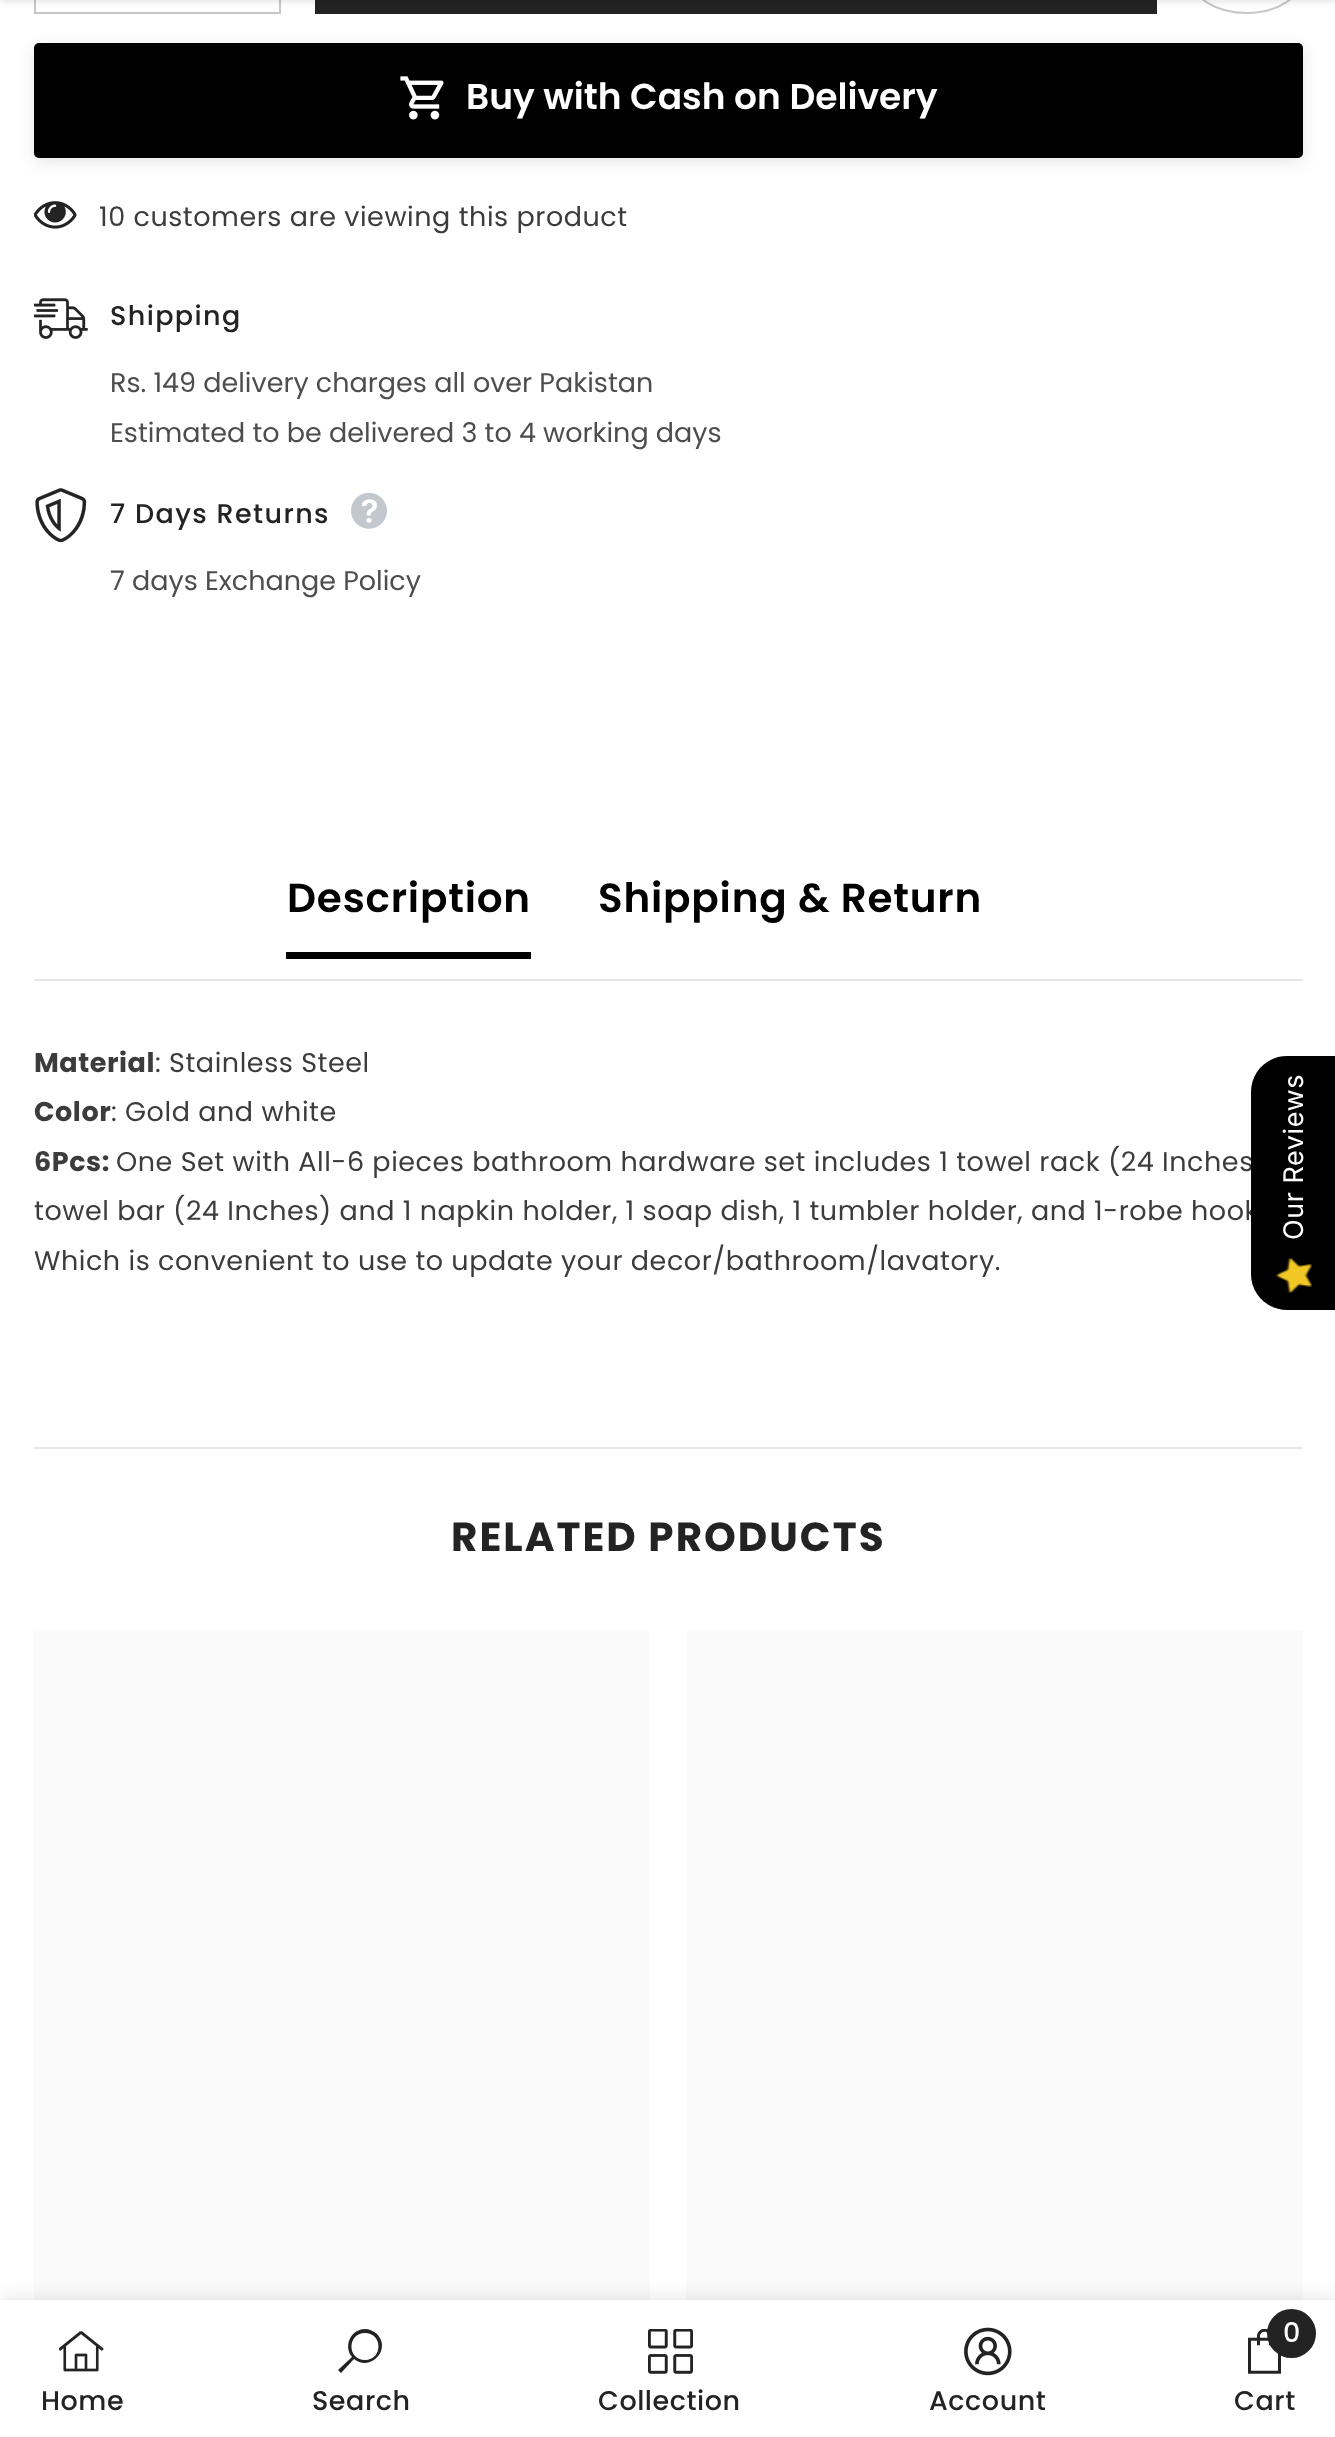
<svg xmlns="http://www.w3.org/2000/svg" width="1335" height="2437">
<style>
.a{font:600 36px Poppins;fill:#fff}
.b{font:27px Poppins;letter-spacing:0.55px;fill:#3c3c3c}
.c{font:500 27px Poppins;letter-spacing:1.4px;fill:#232323}
.d{font:27px Poppins;fill:#4d4d4d}
.e{font:600 40.5px Poppins;letter-spacing:0.8px;fill:#000}
.f{font:bold 27px Poppins;letter-spacing:0.55px;fill:#3c3c3c}
.g{font:bold 40.5px Poppins;letter-spacing:2px;fill:#232323}
.h{font:500 27px Poppins;letter-spacing:0.55px;fill:#232323}
.i{font:500 27px Poppins;fill:#fff}
.j{font:27px Inter;letter-spacing:0.55px;fill:#fff}
</style>
<rect width="100%" height="100%" fill="#fff"/>
<path fill="none" stroke="#c7c7c7" stroke-width="2" d="M35 -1h245v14H35z"/>
<path fill="#232323" d="M315 0h842v14H315z"/>
<rect fill="none" stroke="#c7c7c7" stroke-width="2" x="1191" y="-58" width="111" height="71" rx="55.5"/>
<path fill="#0000001a" filter="blur(3.5px)" d="M0 -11h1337v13H0z"/>
<rect fill="#0000001a" filter="blur(8px)" x="34" y="47" width="1269" height="115" rx="5"/>
<rect fill="#000" x="34" y="43" width="1269" height="115" rx="5"/>
<image href="1.png" x="400" y="76" width="44" height="44"/>
<image href="2.png" x="34" y="201" width="43" height="28"/>
<image href="3.png" x="34" y="298" width="54" height="41"/>
<image href="4.png" x="35" y="488" width="52" height="54"/>
<image href="5.png" x="351" y="493" width="36" height="36"/>
<path fill="#e6e6e6" d="M34 979h1269v2H34z"/>
<path fill="#000" d="M286 952h245v7H286z"/>
<path fill="#e8e8e8" d="M34 1447h1269v2H34z"/>
<path fill="#fafafa" d="M34 1631h616v669H34z"/>
<path fill="#fafafa" d="M686 1631h617v669H686z"/>
<path fill="#0000001f" filter="blur(10px)" d="M0 2300h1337v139H0z"/>
<path fill="#fff" d="M0 2300h1335v137H0z"/>
<image href="6.png" x="59" y="2331" width="45" height="41"/>
<path fill="#232323" d="M365 2329c-14 0-22 17-13 28l-14 13l3 3l13-14c16 13 38-9 23-25c-3-3-8-5-12-5zm0 4c18 0 18 27 0 27c-18 0-18-27 0-27z"/>
<image href="7.png" x="648" y="2329" width="45" height="45"/>
<image href="8.png" x="964" y="2327" width="48" height="49"/>
<image href="9.png" x="1248" y="2329" width="33" height="45"/>
<circle fill="#232323" cx="1291.5" cy="2333.5" r="24.5"/>
<text class="a" x="466" y="109">Buy with Cash on Delivery</text>
<text class="b" x="99" y="226">10 customers are viewing this product</text>
<text class="c" x="110" y="325">Shipping</text>
<text class="d" x="110" y="392">Rs. 149 delivery charges all over Pakistan</text>
<text class="d" x="110" y="442">Estimated to be delivered 3 to 4 working days</text>
<text class="c" x="110" y="523">7 Days Returns</text>
<text class="d" x="110" y="590">7 days Exchange Policy</text>
<text class="e" x="287" y="912">Description</text>
<text class="e" x="598" y="912">Shipping &amp; Return</text>
<text class="f" x="34" y="1072">Material</text>
<text class="b" x="155" y="1072">: Stainless Steel</text>
<text class="f" x="34" y="1121">Color</text>
<text class="b" x="111" y="1121">: Gold and white</text>
<text class="f" x="34" y="1171">6Pcs:</text>
<text class="b" x="116" y="1171">One Set with All-6 pieces bathroom hardware set includes 1 towel rack (24 Inches</text>
<text class="b" x="34" y="1220">towel bar (24 Inches) and 1 napkin holder, 1 soap dish, 1 tumbler holder, and 1-robe hook</text>
<text class="b" x="34" y="1270">Which is convenient to use to update your decor/bathroom/lavatory.</text>
<text class="g" x="451" y="1551">RELATED PRODUCTS</text>
<text class="h" x="41" y="2410">Home</text>
<text class="h" x="312" y="2410">Search</text>
<text class="h" x="598" y="2410">Collection</text>
<text class="h" x="929" y="2410">Account</text>
<text class="i" x="1283" y="2342">0</text>
<text class="h" x="1234" y="2410">Cart</text>
<path fill="#000" d="M1251 1274v-182c0-20 16-36 36-36h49v254h-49c-20 0-36-16-36-36z"/>
<text class="j" x="1303" y="1240" transform="rotate(-90 1303 1240)">Our Reviews</text>
<image href="10.png" x="1276" y="1258" width="36" height="35"/>
</svg>
